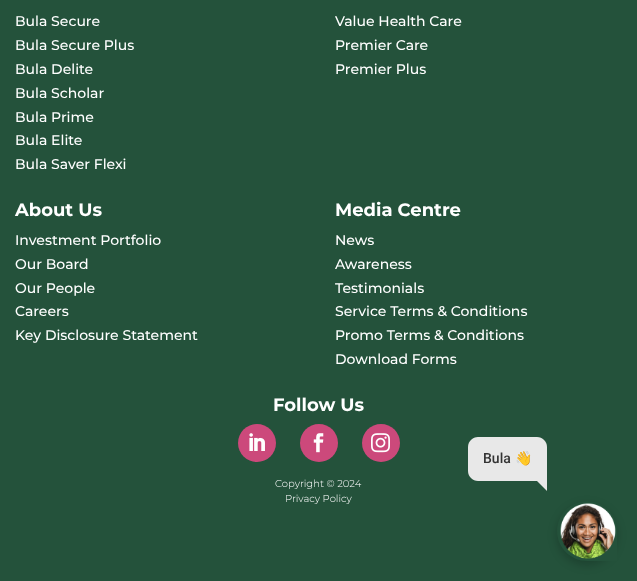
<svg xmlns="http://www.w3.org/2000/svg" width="637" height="581">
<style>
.a{font:500 14px Montserrat;fill:#fff}
.b{font:bold 18px Montserrat;fill:#fff}
.c{font:300 10px Montserrat;fill:#fff}
.d{font:500 14px Roboto;fill:#333}
.e{font:14px Noto Color Emoji;fill:#333}
</style>
<rect width="100%" height="100%" fill="#24523b"/>
<circle fill="#cc497b" cx="257" cy="443" r="19"/>
<image href="1.png" x="249" y="433" width="16" height="18"/>
<circle fill="#cc497b" cx="319" cy="443" r="19"/>
<image href="2.png" x="313" y="433" width="11" height="20"/>
<circle fill="#cc497b" cx="381" cy="443" r="19"/>
<image href="3.png" x="371" y="433" width="19" height="20"/>
<path fill="#e8e8e8" d="M478 437h59c5.5 0 10 4.5 10 10v34h-69c-5.5 0-10-4.5-10-10v-24c0-5.5 4.5-10 10-10z"/>
<rect fill="#00000033" filter="blur(5px)" x="557" y="505" width="60" height="60" rx="30"/>
<path fill="#e8e8e8" d="M537 481h10v10z"/>
<path fill="#24523b" d="M587 501c16.5 0 30 13.5 30 30v30h-30c-16.5 0-30-13.5-30-30c0-16.5 13.5-30 30-30z"/>
<image href="4.png" x="560" y="503" width="56" height="56"/>
<text class="a" x="15" y="26">Bula Secure</text>
<text class="a" x="15" y="50">Bula Secure Plus</text>
<text class="a" x="15" y="74">Bula Delite</text>
<text class="a" x="15" y="98">Bula Scholar</text>
<text class="a" x="15" y="122">Bula Prime</text>
<text class="a" x="15" y="145">Bula Elite</text>
<text class="a" x="15" y="169">Bula Saver Flexi</text>
<text class="a" x="335" y="26">Value Health Care</text>
<text class="a" x="335" y="50">Premier Care</text>
<text class="a" x="335" y="74">Premier Plus</text>
<text class="b" x="15" y="216">About Us</text>
<text class="a" x="15" y="245">Investment Portfolio</text>
<text class="a" x="15" y="269">Our Board</text>
<text class="a" x="15" y="293">Our People</text>
<text class="a" x="15" y="316">Careers</text>
<text class="a" x="15" y="340">Key Disclosure Statement</text>
<text class="b" x="335" y="216">Media Centre</text>
<text class="a" x="335" y="245">News</text>
<text class="a" x="335" y="269">Awareness</text>
<text class="a" x="335" y="293">Testimonials</text>
<text class="a" x="335" y="316">Service Terms &amp; Conditions</text>
<text class="a" x="335" y="340">Promo Terms &amp; Conditions</text>
<text class="a" x="335" y="364">Download Forms</text>
<text class="b" x="273" y="411">Follow Us</text>
<text class="c" x="275" y="487">Copyright © 2024</text>
<text class="c" x="285" y="502">Privacy Policy</text>
<text class="d" x="483" y="463">Bula</text>
<text class="e" x="515" y="463">👋</text>
</svg>
